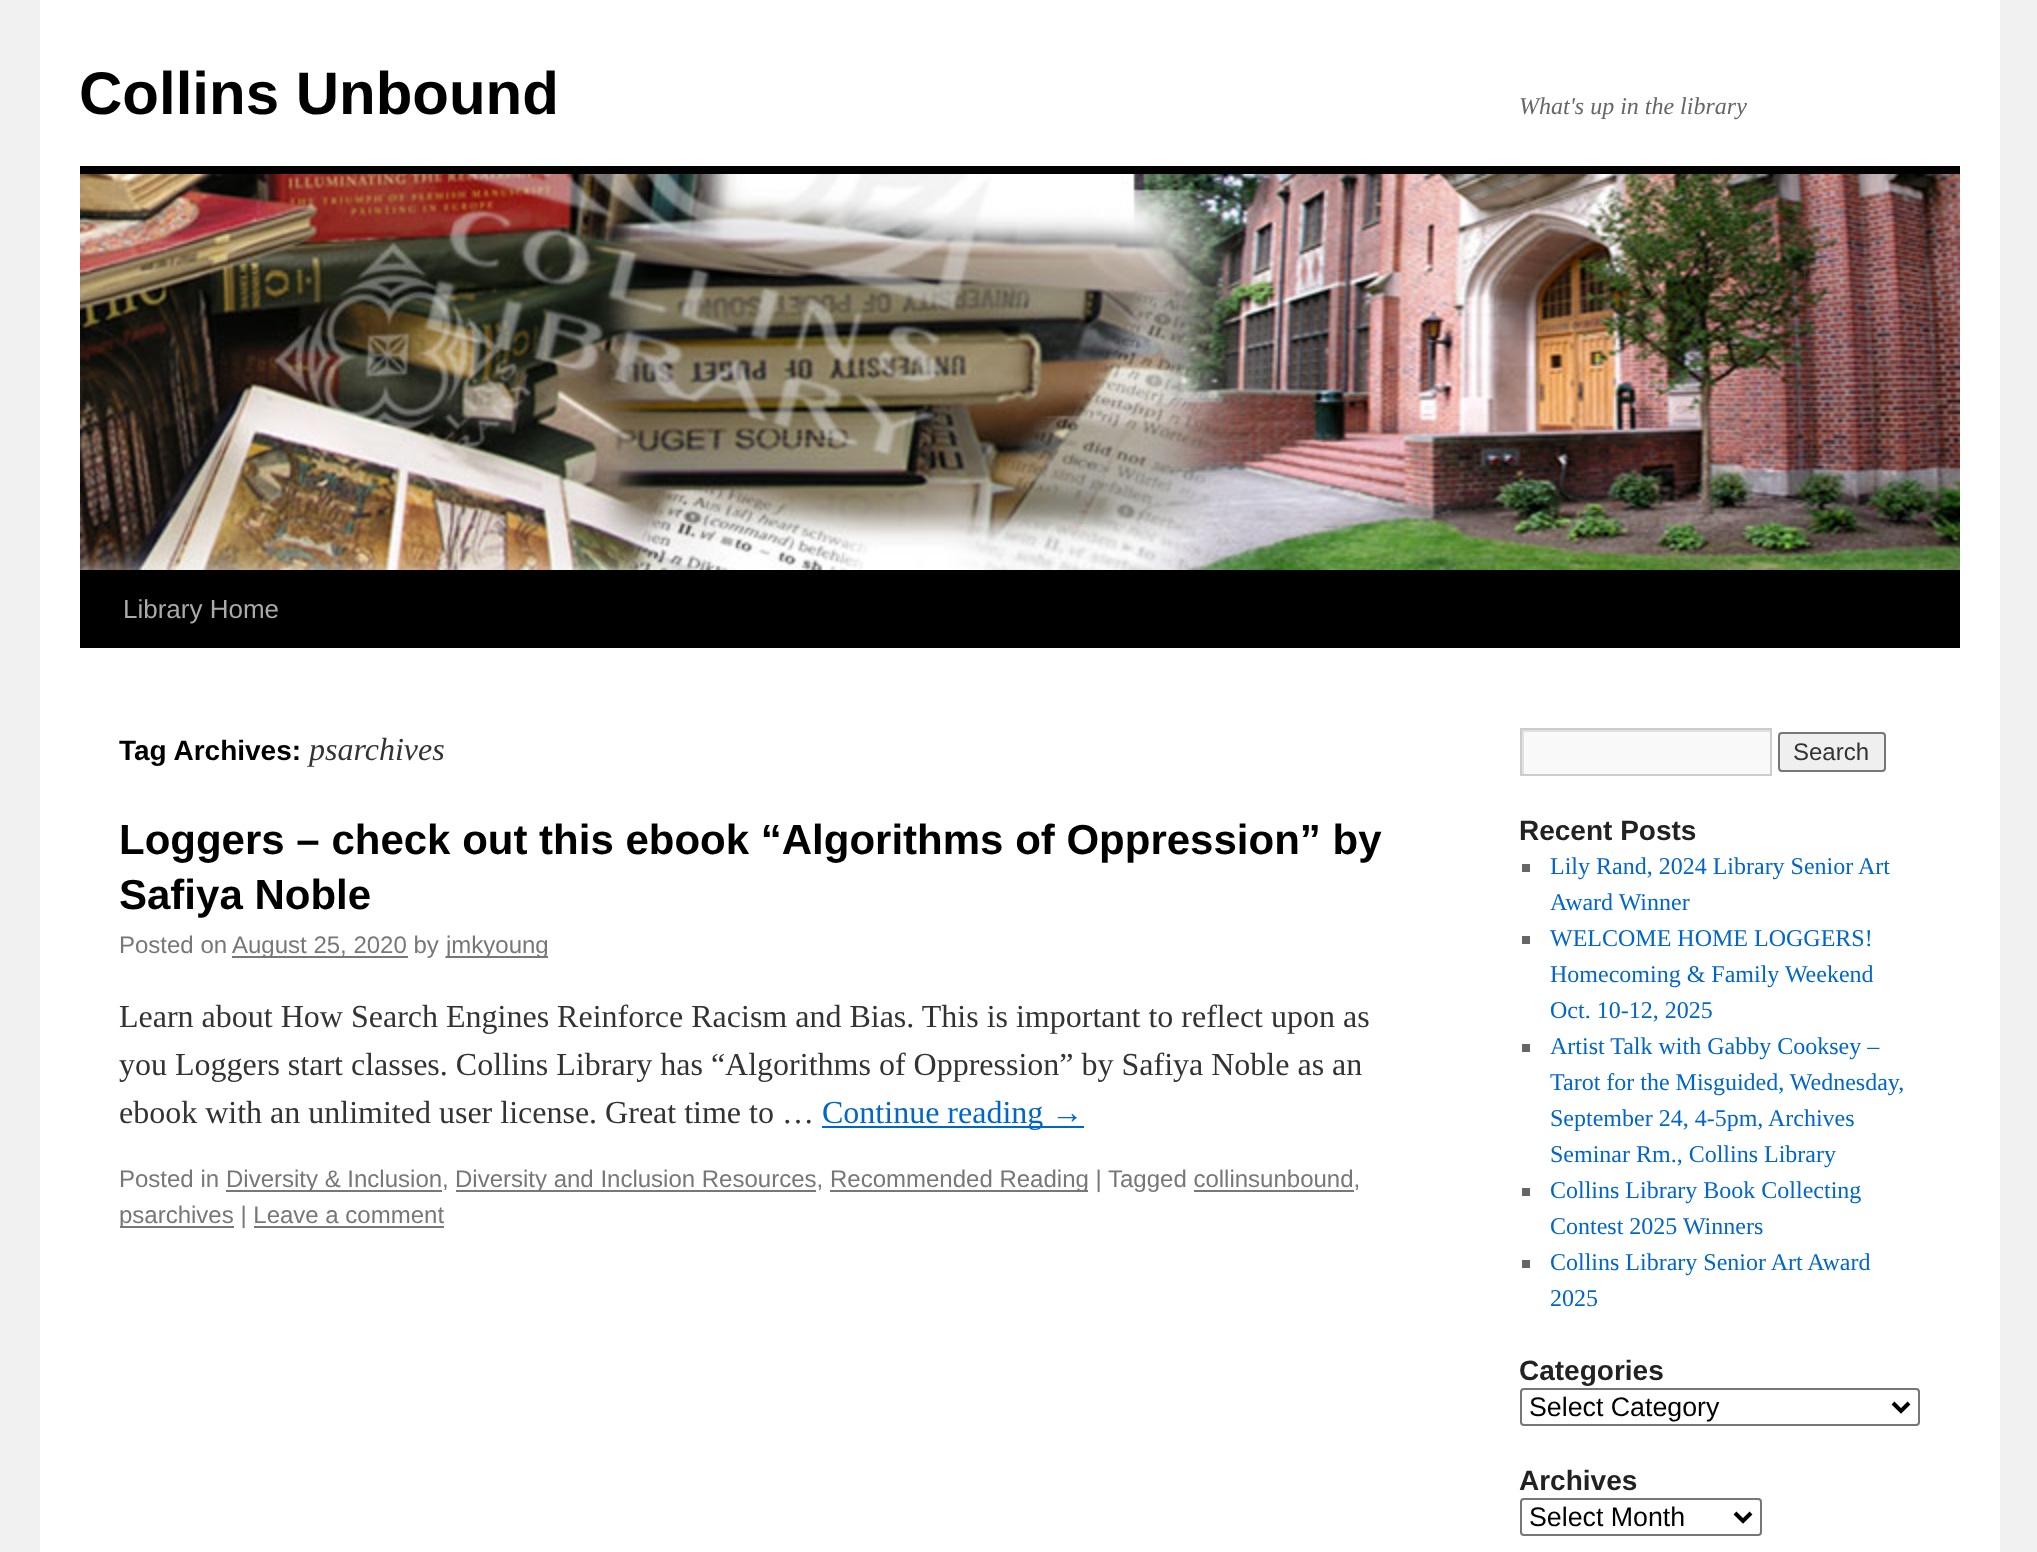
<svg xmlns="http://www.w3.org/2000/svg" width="2037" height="1552">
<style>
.a{font:bold 60px Liberation Sans;fill:#000}
.b{font:italic 24px Liberation Serif;fill:#666}
.c{font:26px Liberation Sans;fill:#aaa}
.d{font:bold 28px Liberation Sans;fill:#000}
.e{font:italic 32px Liberation Serif;fill:#333}
.f{font:bold 42px Liberation Sans;fill:#000}
.g{font:24px Liberation Sans;fill:#777}
.h{font:32px Liberation Serif;fill:#333}
.i{font:32px Liberation Serif;fill:#06c}
.j{font:24px Liberation Sans;fill:#333}
.k{font:bold 28px Liberation Sans;fill:#222}
.l{font:24px Liberation Serif;fill:#06c}
.m{font:26.75px Liberation Sans;fill:#000}
</style>
<defs>
<clipPath id="clip1"><path d="M1522 730h248v44H1522z"/></clipPath>
</defs>
<rect width="100%" height="100%" fill="#f1f1f1"/>
<path fill="#fff" d="M40 0h1960v1552H40z"/>
<path fill="#000" d="M80 166h1880v8H80z"/>
<path fill="#000" d="M80 570h1880v78H80z"/>
<image href="1.png" x="80" y="174" width="1880" height="396"/>
<path fill="#777" d="M232 956h176v2H232z"/>
<path fill="#777" d="M446 956h102v2H446z"/>
<path fill="#06c" d="M822 1126h262v2H822z"/>
<path fill="#777" d="M226 1190h216v2H226z"/>
<path fill="#777" d="M456 1190h360v2H456z"/>
<path fill="#777" d="M830 1190h258v2H830z"/>
<path fill="#777" d="M1194 1190h160v2H1194z"/>
<path fill="#777" d="M120 1226h114v2H120z"/>
<path fill="#777" d="M254 1226h190v2H254z"/>
<path fill="#f9f9f9" d="M1524 732h246v42H1524z"/>
<g clip-path="url(#clip1)">
<path fill="#e0e0e0" fill-rule="evenodd" d="M1324 532h644v440h-644zm200 200h248v44h-248z"/>
</g>
<path fill="none" stroke="#ccc" stroke-width="2" d="M1521 729h250v46H1521z"/>
<rect fill="#efefef" stroke="#767676" stroke-width="2" x="1779" y="733" width="106" height="38" rx="3"/>
<path fill="#666" d="M1522 864h8v8H1522z"/>
<path fill="#666" d="M1522 936h8v8H1522z"/>
<path fill="#666" d="M1522 1044h8v8H1522z"/>
<path fill="#666" d="M1522 1188h8v8H1522z"/>
<path fill="#666" d="M1522 1260h8v8H1522z"/>
<rect fill="none" stroke="#767676" stroke-width="2" x="1521" y="1389" width="398" height="36" rx="3"/>
<path fill="none" stroke="#000" stroke-width="4" d="M1893 1403l8 8l8-8"/>
<rect fill="none" stroke="#767676" stroke-width="2" x="1521" y="1499" width="240" height="36" rx="3"/>
<path fill="none" stroke="#000" stroke-width="4" d="M1735 1513l8 8l8-8"/>
<text class="a" x="79" y="114">Collins Unbound</text>
<text class="b" x="1519" y="114">What's up in the library</text>
<text class="c" x="123" y="618">Library Home</text>
<text class="d" x="119" y="760">Tag Archives:</text>
<text class="e" x="309" y="760">psarchives</text>
<text class="f" x="119" y="854">Loggers – check out this ebook “Algorithms of Oppression” by</text>
<text class="f" x="119" y="909">Safiya Noble</text>
<text class="g" x="119" y="953">Posted on</text>
<text class="g" x="232" y="953">August 25, 2020 by</text>
<text class="g" x="446" y="953">jmkyoung</text>
<text class="h" x="119" y="1027">Learn about How Search Engines Reinforce Racism and Bias. This is important to reflect upon as</text>
<text class="h" x="119" y="1075">you Loggers start classes. Collins Library has “Algorithms of Oppression” by Safiya Noble as an</text>
<text class="h" x="119" y="1123">ebook with an unlimited user license. Great time to …</text>
<text class="i" x="822" y="1123">Continue reading →</text>
<text class="g" x="119" y="1187">Posted in</text>
<text class="g" x="226" y="1187">Diversity &amp; Inclusion,</text>
<text class="g" x="455" y="1187">Diversity and Inclusion Resources,</text>
<text class="g" x="830" y="1187">Recommended Reading |</text>
<text class="g" x="1108" y="1187">Tagged collinsunbound,</text>
<text class="g" x="119" y="1223">psarchives | Leave a comment</text>
<text class="j" x="1793" y="760">Search</text>
<text class="k" x="1519" y="840">Recent Posts</text>
<text class="l" x="1550" y="874">Lily Rand, 2024 Library Senior Art</text>
<text class="l" x="1550" y="910">Award Winner</text>
<text class="l" x="1550" y="946">WELCOME HOME LOGGERS!</text>
<text class="l" x="1550" y="982">Homecoming &amp; Family Weekend</text>
<text class="l" x="1550" y="1018">Oct. 10-12, 2025</text>
<text class="l" x="1550" y="1054">Artist Talk with Gabby Cooksey –</text>
<text class="l" x="1550" y="1090">Tarot for the Misguided, Wednesday,</text>
<text class="l" x="1550" y="1126">September 24, 4-5pm, Archives</text>
<text class="l" x="1550" y="1162">Seminar Rm., Collins Library</text>
<text class="l" x="1550" y="1198">Collins Library Book Collecting</text>
<text class="l" x="1550" y="1234">Contest 2025 Winners</text>
<text class="l" x="1550" y="1270">Collins Library Senior Art Award</text>
<text class="l" x="1550" y="1306">2025</text>
<text class="k" x="1519" y="1380">Categories</text>
<text class="m" x="1529" y="1416">Select Category</text>
<text class="k" x="1519" y="1490">Archives</text>
<text class="m" x="1529" y="1526">Select Month</text>
</svg>
